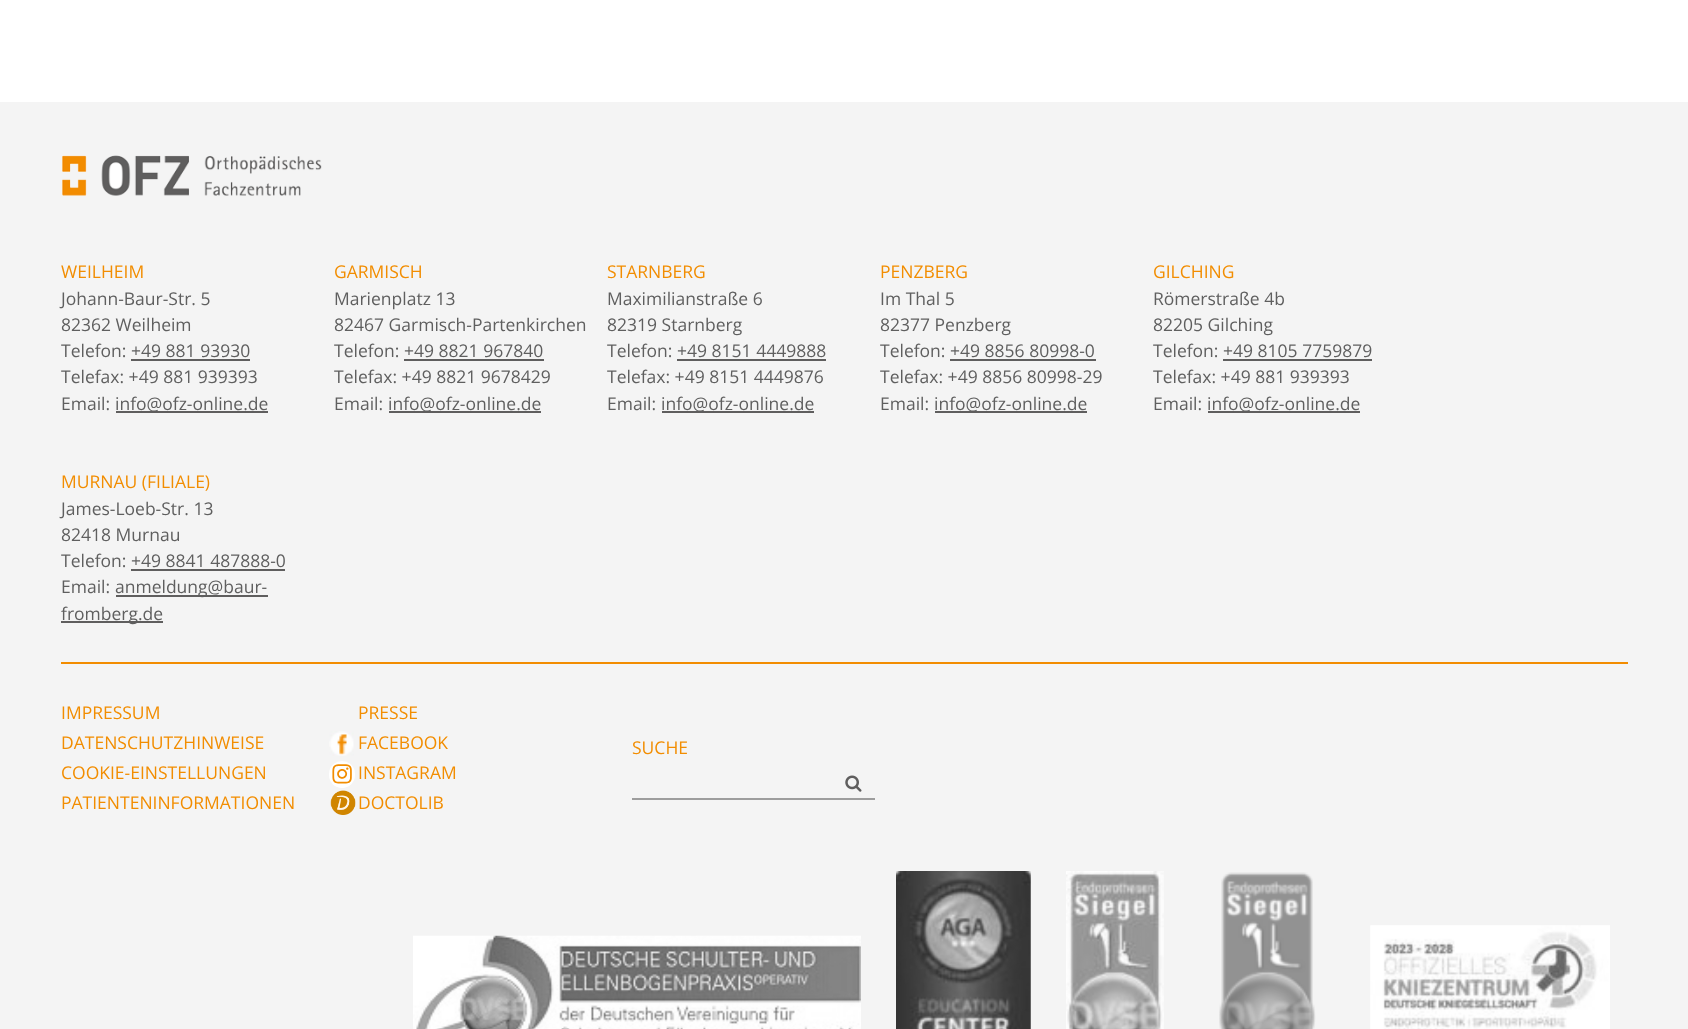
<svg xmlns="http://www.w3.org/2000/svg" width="1688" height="1029">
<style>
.a{font:17.5px Open Sans;fill:#f28d01}
.b{font:17.5px Open Sans;fill:#5f5f5f}
</style>
<rect width="100%" height="100%" fill="#fff"/>
<path fill="#f4f4f4" d="M0 102h1688v927H0z"/>
<image href="1.png" x="62" y="155" width="260" height="41"/>
<path fill="#f28c00" d="M61 662h1567v2H61z"/>
<path fill="#5f5e5e" d="M131 359h119v2H131z"/>
<path fill="#5f5e5e" d="M116 411h152v2H116z"/>
<path fill="#5f5e5e" d="M404 359h140v2H404z"/>
<path fill="#5f5e5e" d="M389 411h152v2H389z"/>
<path fill="#5f5e5e" d="M677 359h149v2H677z"/>
<path fill="#5f5e5e" d="M662 411h152v2H662z"/>
<path fill="#5f5e5e" d="M950 359h146v2H950z"/>
<path fill="#5f5e5e" d="M935 411h152v2H935z"/>
<path fill="#5f5e5e" d="M1223 359h149v2H1223z"/>
<path fill="#5f5e5e" d="M1208 411h152v2H1208z"/>
<path fill="#5f5e5e" d="M131 569h154v2H131z"/>
<path fill="#5f5e5e" d="M116 595h152v2H116z"/>
<path fill="#5f5e5e" d="M61 621h102v2H61z"/>
<image href="2.png" x="329" y="731" width="25" height="25"/>
<rect fill="#fff" x="329" y="761" width="26" height="27" rx="13"/>
<image href="3.png" x="332" y="764" width="20" height="20"/>
<image href="4.png" x="330" y="790" width="26" height="25"/>
<image href="5.png" x="845" y="775" width="17" height="17"/>
<path fill="#9d9d9d" d="M632 798h243v2H632z"/>
<image href="6.png" x="413" y="935" width="448" height="94"/>
<image href="7.png" x="896" y="871" width="135" height="158"/>
<image href="8.png" x="1066" y="871" width="98" height="158"/>
<image href="9.png" x="1219" y="872" width="97" height="157"/>
<image href="10.png" x="1370" y="925" width="240" height="104"/>
<text class="a" x="61" y="278">WEILHEIM</text>
<text class="b" x="61" y="305">Johann-Baur-Str. 5</text>
<text class="b" x="61" y="331">82362 Weilheim</text>
<text class="b" x="61" y="357">Telefon:</text>
<text class="b" x="131" y="357">+49 881 93930</text>
<text class="b" x="61" y="383">Telefax: +49 881 939393</text>
<text class="b" x="61" y="410">Email:</text>
<text class="b" x="115" y="410">info@ofz-online.de</text>
<text class="a" x="334" y="278">GARMISCH</text>
<text class="b" x="334" y="305">Marienplatz 13</text>
<text class="b" x="334" y="331">82467 Garmisch-Partenkirchen</text>
<text class="b" x="334" y="357">Telefon:</text>
<text class="b" x="404" y="357">+49 8821 967840</text>
<text class="b" x="334" y="383">Telefax: +49 8821 9678429</text>
<text class="b" x="334" y="410">Email:</text>
<text class="b" x="388" y="410">info@ofz-online.de</text>
<text class="a" x="607" y="278">STARNBERG</text>
<text class="b" x="607" y="305">Maximilianstraße 6</text>
<text class="b" x="607" y="331">82319 Starnberg</text>
<text class="b" x="607" y="357">Telefon:</text>
<text class="b" x="677" y="357">+49 8151 4449888</text>
<text class="b" x="607" y="383">Telefax: +49 8151 4449876</text>
<text class="b" x="607" y="410">Email:</text>
<text class="b" x="661" y="410">info@ofz-online.de</text>
<text class="a" x="880" y="278">PENZBERG</text>
<text class="b" x="880" y="305">Im Thal 5</text>
<text class="b" x="880" y="331">82377 Penzberg</text>
<text class="b" x="880" y="357">Telefon:</text>
<text class="b" x="950" y="357">+49 8856 80998-0</text>
<text class="b" x="880" y="383">Telefax: +49 8856 80998-29</text>
<text class="b" x="880" y="410">Email:</text>
<text class="b" x="934" y="410">info@ofz-online.de</text>
<text class="a" x="1153" y="278">GILCHING</text>
<text class="b" x="1153" y="305">Römerstraße 4b</text>
<text class="b" x="1153" y="331">82205 Gilching</text>
<text class="b" x="1153" y="357">Telefon:</text>
<text class="b" x="1223" y="357">+49 8105 7759879</text>
<text class="b" x="1153" y="383">Telefax: +49 881 939393</text>
<text class="b" x="1153" y="410">Email:</text>
<text class="b" x="1207" y="410">info@ofz-online.de</text>
<text class="a" x="61" y="488">MURNAU (FILIALE)</text>
<text class="b" x="61" y="515">James-Loeb-Str. 13</text>
<text class="b" x="61" y="541">82418 Murnau</text>
<text class="b" x="61" y="567">Telefon:</text>
<text class="b" x="131" y="567">+49 8841 487888-0</text>
<text class="b" x="61" y="593">Email:</text>
<text class="b" x="115" y="593">anmeldung@baur-</text>
<text class="b" x="61" y="620">fromberg.de</text>
<text class="a" x="61" y="719">IMPRESSUM</text>
<text class="a" x="61" y="749">DATENSCHUTZHINWEISE</text>
<text class="a" x="61" y="779">COOKIE-EINSTELLUNGEN</text>
<text class="a" x="61" y="809">PATIENTENINFORMATIONEN</text>
<text class="a" x="358" y="719">PRESSE</text>
<text class="a" x="358" y="749">FACEBOOK</text>
<text class="a" x="358" y="779">INSTAGRAM</text>
<text class="a" x="358" y="809">DOCTOLIB</text>
<text class="a" x="632" y="754">SUCHE</text>
</svg>
